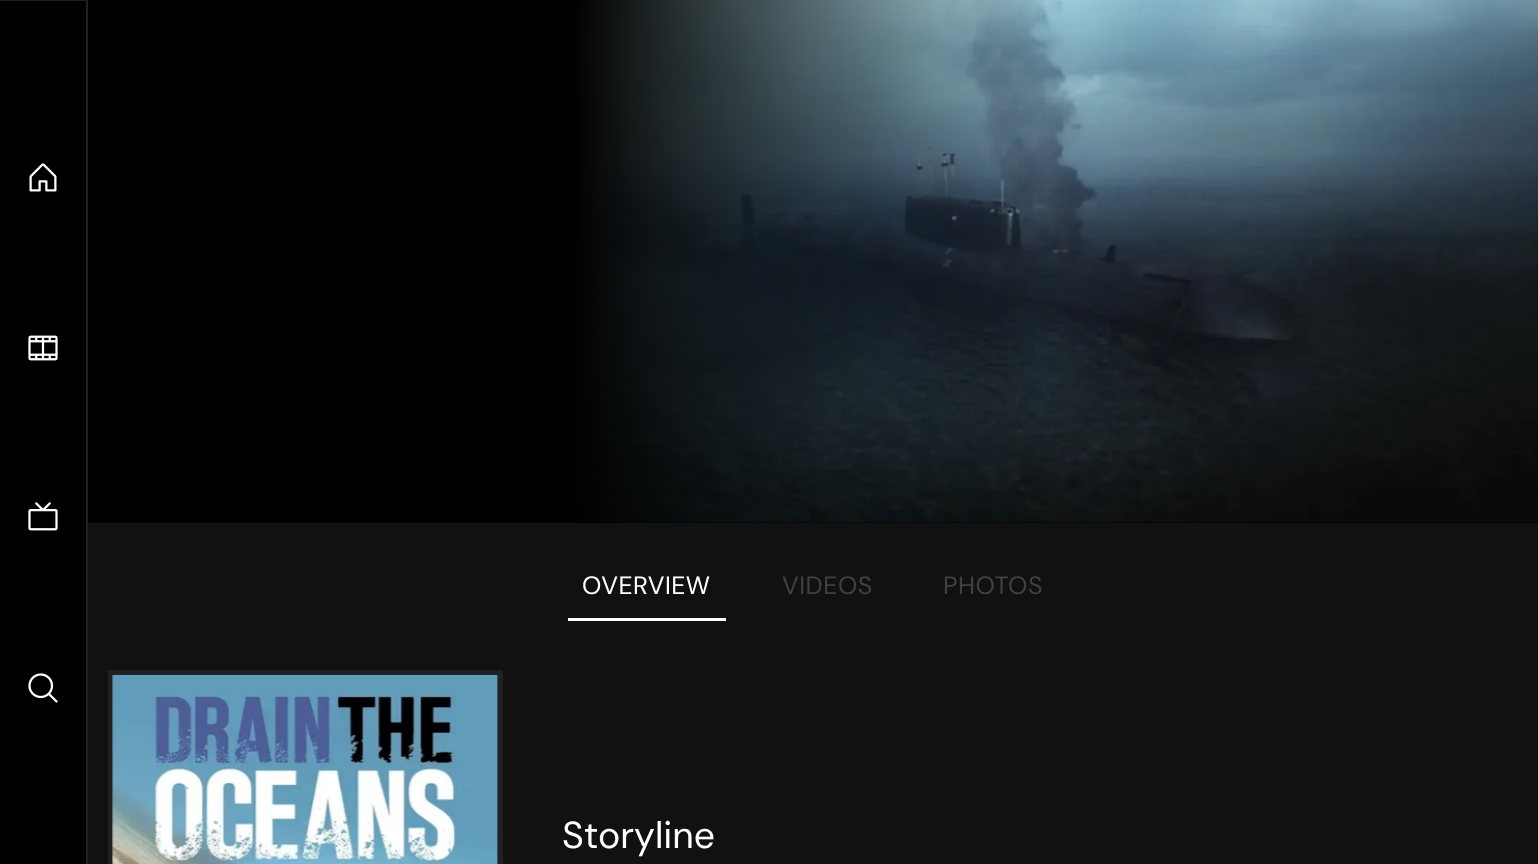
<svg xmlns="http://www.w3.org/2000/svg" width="1538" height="864">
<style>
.a{font:25px DM Sans;letter-spacing:0.5px;fill:#fff}
.b{font:25px DM Sans;letter-spacing:0.5px;fill:#414141}
.c{font:37.5px DM Sans;fill:#fff}
</style>
<defs>
<linearGradient id="g1" gradientUnits="userSpaceOnUse" x1="88" y1="261" x2="1055" y2="261"><stop offset="0" stop-color="#000"/><stop offset="0.5" stop-color="#000"/><stop offset="1" stop-color="#000" stop-opacity="0"/></linearGradient>
</defs>
<rect width="100%" height="100%" fill="#111"/>
<path fill="#000" d="M0 0h88v864H0z"/>
<path fill="#1f2123" d="M0 0h88l-2 1h-86z"/>
<path fill="#9ca3af33" d="M88 0v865h-2v-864z"/>
<image href="1.png" x="29" y="163" width="28" height="29"/>
<image href="2.png" x="28" y="335" width="30" height="26"/>
<image href="3.png" x="28" y="502" width="30" height="29"/>
<image href="4.png" x="28" y="673" width="30" height="30"/>
<path fill="#000" d="M574 522h964v1H574z"/>
<image href="5.png" x="574" y="0" width="964" height="523"/>
<path fill="url(#g1)" d="M88 0h957v523H88z"/>
<path fill="#fff" d="M568 618h158v3H568z"/>
<path fill="none" stroke="#1f2021" stroke-width="5" d="M110.5 672.5h390v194H110.5z"/>
<image href="6.png" x="112" y="675" width="387" height="189"/>
<text class="a" x="582" y="594">OVERVIEW</text>
<text class="b" x="782" y="594">VIDEOS</text>
<text class="b" x="943" y="594">PHOTOS</text>
<text class="c" x="562" y="848">Storyline</text>
</svg>
